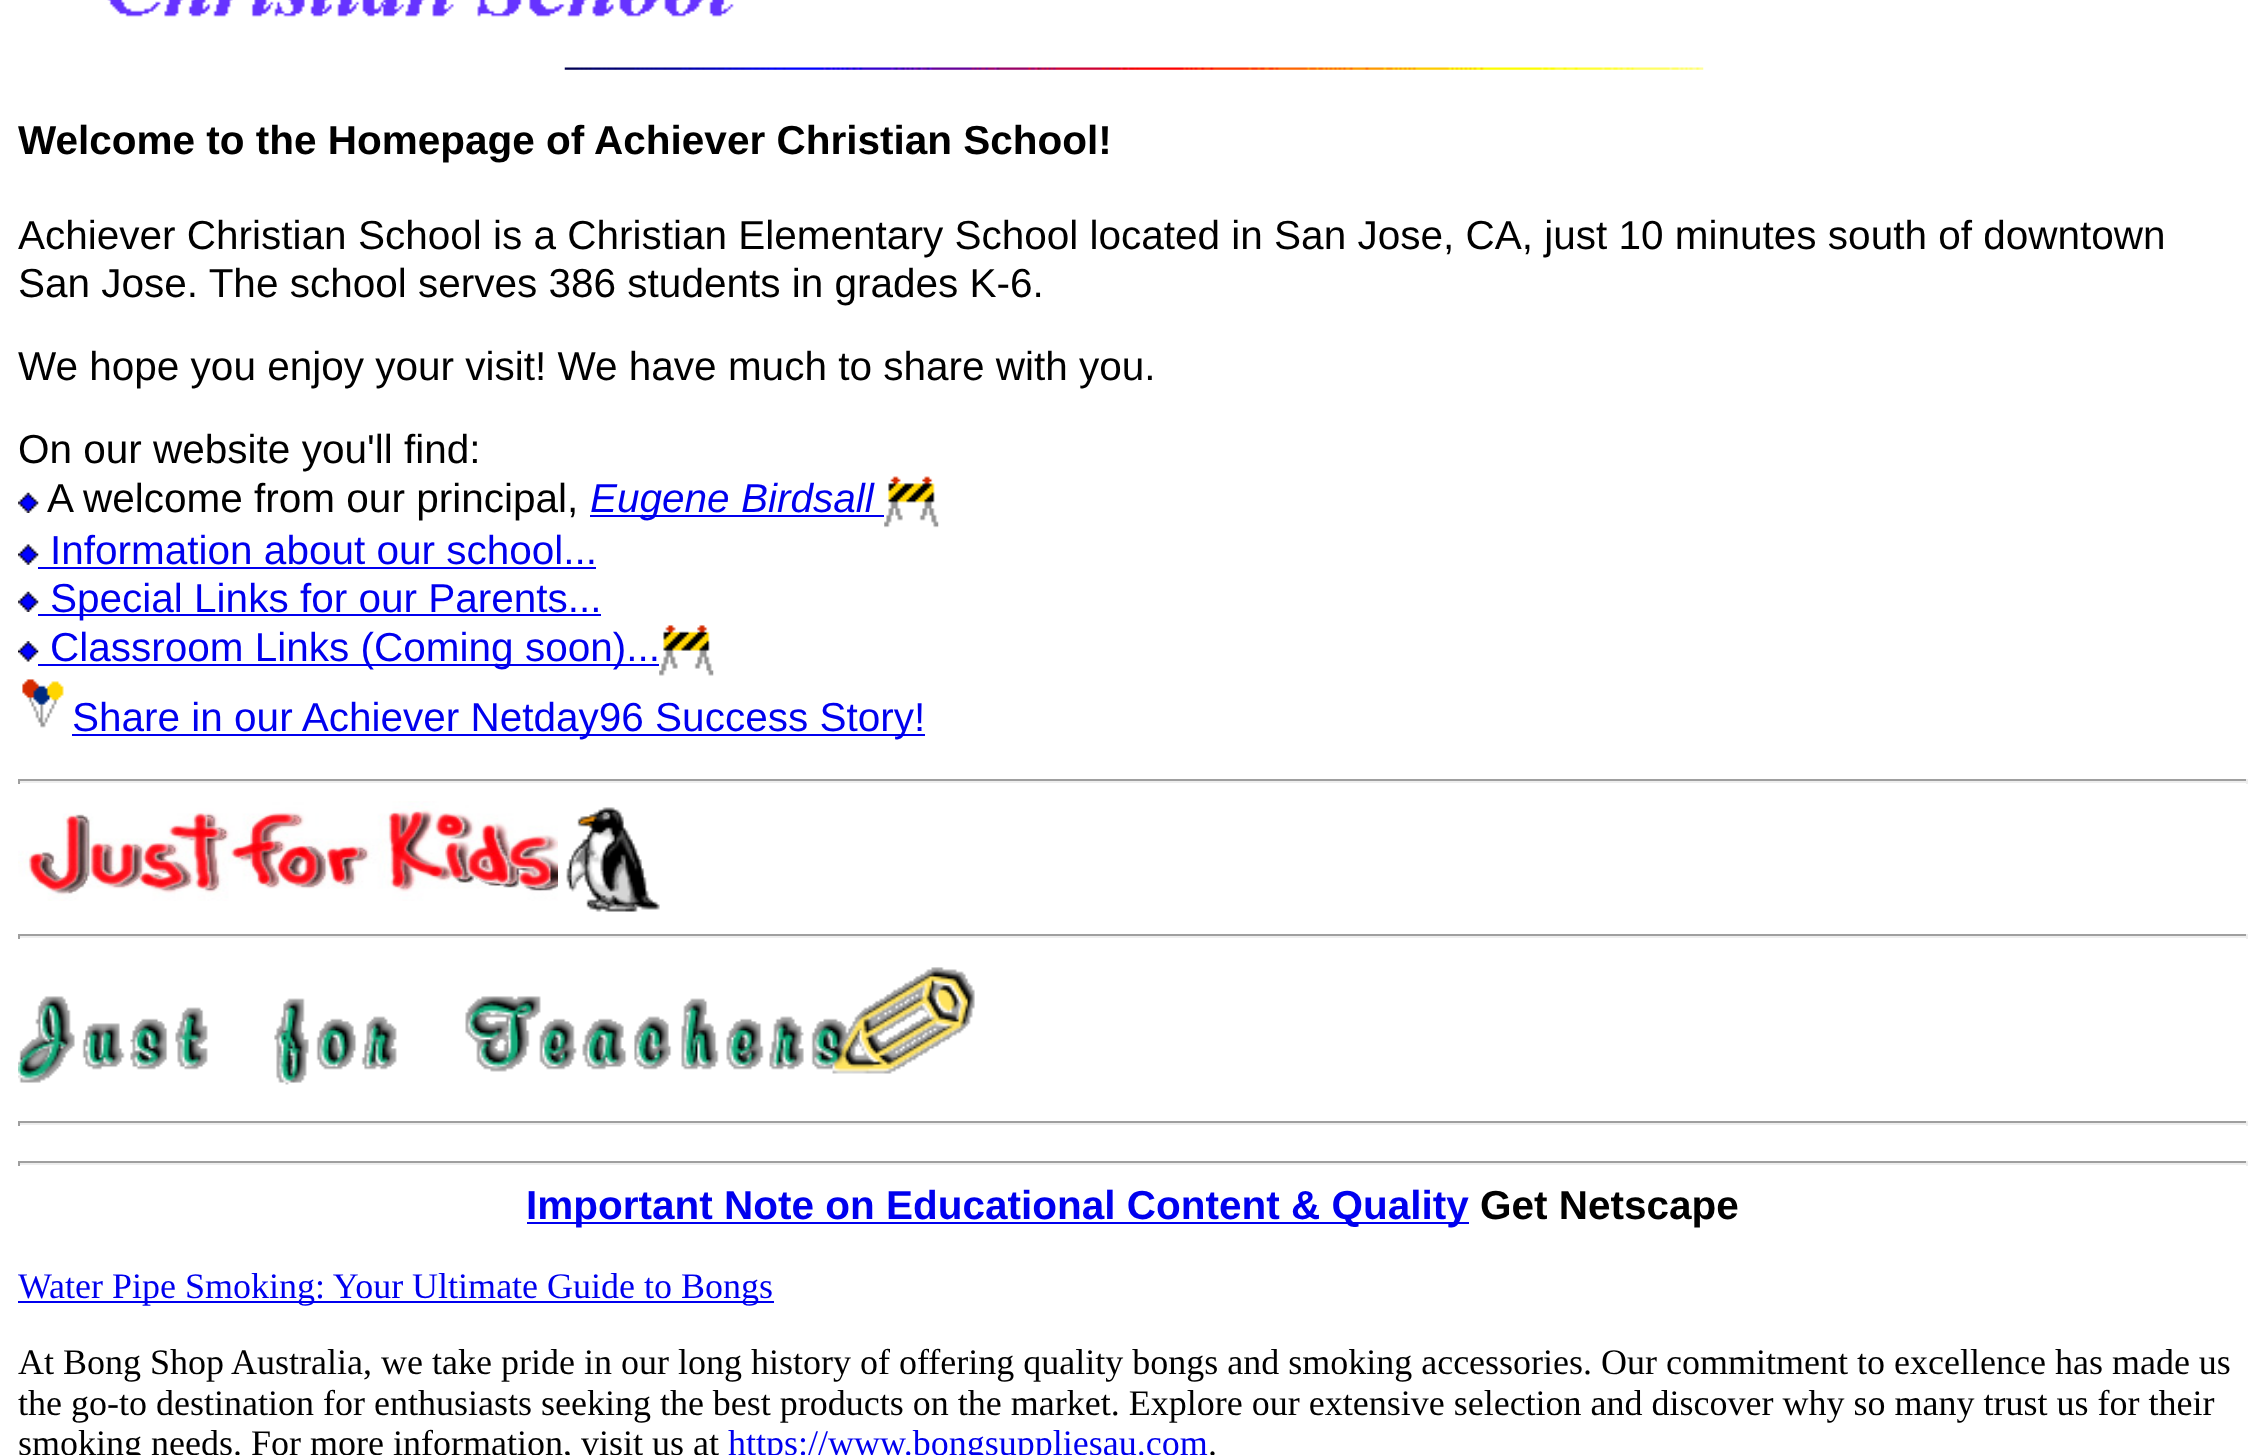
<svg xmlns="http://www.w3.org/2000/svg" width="2264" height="1455">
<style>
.a{font:bold 40.5px Liberation Sans;fill:#000}
.b{font:40.5px Liberation Sans;fill:#000}
.c{font:italic 40.5px Liberation Sans;fill:#00e}
.d{font:40.5px Liberation Sans;fill:#00e}
.e{font:bold 40.5px Liberation Sans;fill:#00e}
.f{font:36px Liberation Serif;fill:#00e}
.g{font:36px Liberation Serif;fill:#000}
</style>
<rect width="100%" height="100%" fill="#fff"/>
<image href="1.png" x="107" y="0" width="627" height="17"/>
<image href="2.png" x="564" y="67" width="1140" height="3"/>
<image href="3.png" x="18" y="492" width="21" height="21"/>
<path fill="#00e" d="M590 515h294v2H590z"/>
<image href="4.png" x="884" y="476" width="55" height="52"/>
<image href="5.png" x="18" y="544" width="21" height="21"/>
<path fill="#00e" d="M38 567h558v2H38z"/>
<image href="6.png" x="18" y="591" width="21" height="21"/>
<path fill="#00e" d="M38 614h563v2H38z"/>
<image href="7.png" x="18" y="641" width="21" height="21"/>
<path fill="#00e" d="M38 664h621v2H38z"/>
<image href="8.png" x="659" y="625" width="55" height="51"/>
<image href="9.png" x="22" y="679" width="42" height="49"/>
<path fill="#00e" d="M72 734h853v2H72z"/>
<path fill="#9f9f9f" d="M18 779h2230v2H18z"/>
<path fill="#eee" d="M2246 779h2v5H2246z"/>
<path fill="#eee" d="M18 781h2230v2H18z"/>
<path fill="#9f9f9f" d="M18 779h2v5H18z"/>
<image href="10.png" x="18" y="801" width="540" height="100"/>
<image href="11.png" x="566" y="807" width="94" height="105"/>
<path fill="#9f9f9f" d="M18 934h2230v2H18z"/>
<path fill="#eee" d="M2246 934h2v5H2246z"/>
<path fill="#eee" d="M18 936h2230v2H18z"/>
<path fill="#9f9f9f" d="M18 934h2v5H18z"/>
<image href="12.png" x="18" y="967" width="957" height="118"/>
<path fill="#9f9f9f" d="M18 1121h2230v2H18z"/>
<path fill="#eee" d="M2246 1121h2v5H2246z"/>
<path fill="#eee" d="M18 1123h2230v2H18z"/>
<path fill="#9f9f9f" d="M18 1121h2v5H18z"/>
<path fill="#9f9f9f" d="M18 1161h2230v2H18z"/>
<path fill="#eee" d="M2246 1161h2v5H2246z"/>
<path fill="#eee" d="M18 1163h2230v2H18z"/>
<path fill="#9f9f9f" d="M18 1161h2v5H18z"/>
<path fill="#00e" d="M527 1222h942v2H527z"/>
<path fill="#00e" d="M18 1301h756v2H18z"/>
<text class="a" x="18" y="154">Welcome to the Homepage of Achiever Christian School!</text>
<text class="b" x="18" y="249">Achiever Christian School is a Christian Elementary School located in San Jose, CA, just 10 minutes south of downtown</text>
<text class="b" x="18" y="297">San Jose. The school serves 386 students in grades K-6.</text>
<text class="b" x="18" y="380">We hope you enjoy your visit! We have much to share with you.</text>
<text class="b" x="18" y="463">On our website you'll find:</text>
<text class="b" x="47" y="512">A welcome from our principal,</text>
<text class="c" x="590" y="512">Eugene Birdsall</text>
<text class="d" x="50" y="564">Information about our school...</text>
<text class="d" x="50" y="612">Special Links for our Parents...</text>
<text class="d" x="50" y="661">Classroom Links (Coming soon)...</text>
<text class="d" x="72" y="731">Share in our Achiever Netday96 Success Story!</text>
<text class="e" x="526" y="1219">Important Note on Educational Content &amp; Quality</text>
<text class="a" x="1480" y="1219">Get Netscape</text>
<text class="f" x="18" y="1298">Water Pipe Smoking: Your Ultimate Guide to Bongs</text>
<text class="g" x="18" y="1374">At Bong Shop Australia, we take pride in our long history of offering quality bongs and smoking accessories. Our commitment to excellence has made us</text>
<text class="g" x="18" y="1415">the go-to destination for enthusiasts seeking the best products on the market. Explore our extensive selection and discover why so many trust us for their</text>
<text class="g" x="18" y="1455">smoking needs. For more information, visit us at</text>
<text class="f" x="728" y="1455">https://www.bongsuppliesau.com</text>
<text class="g" x="1208" y="1455">.</text>
</svg>
